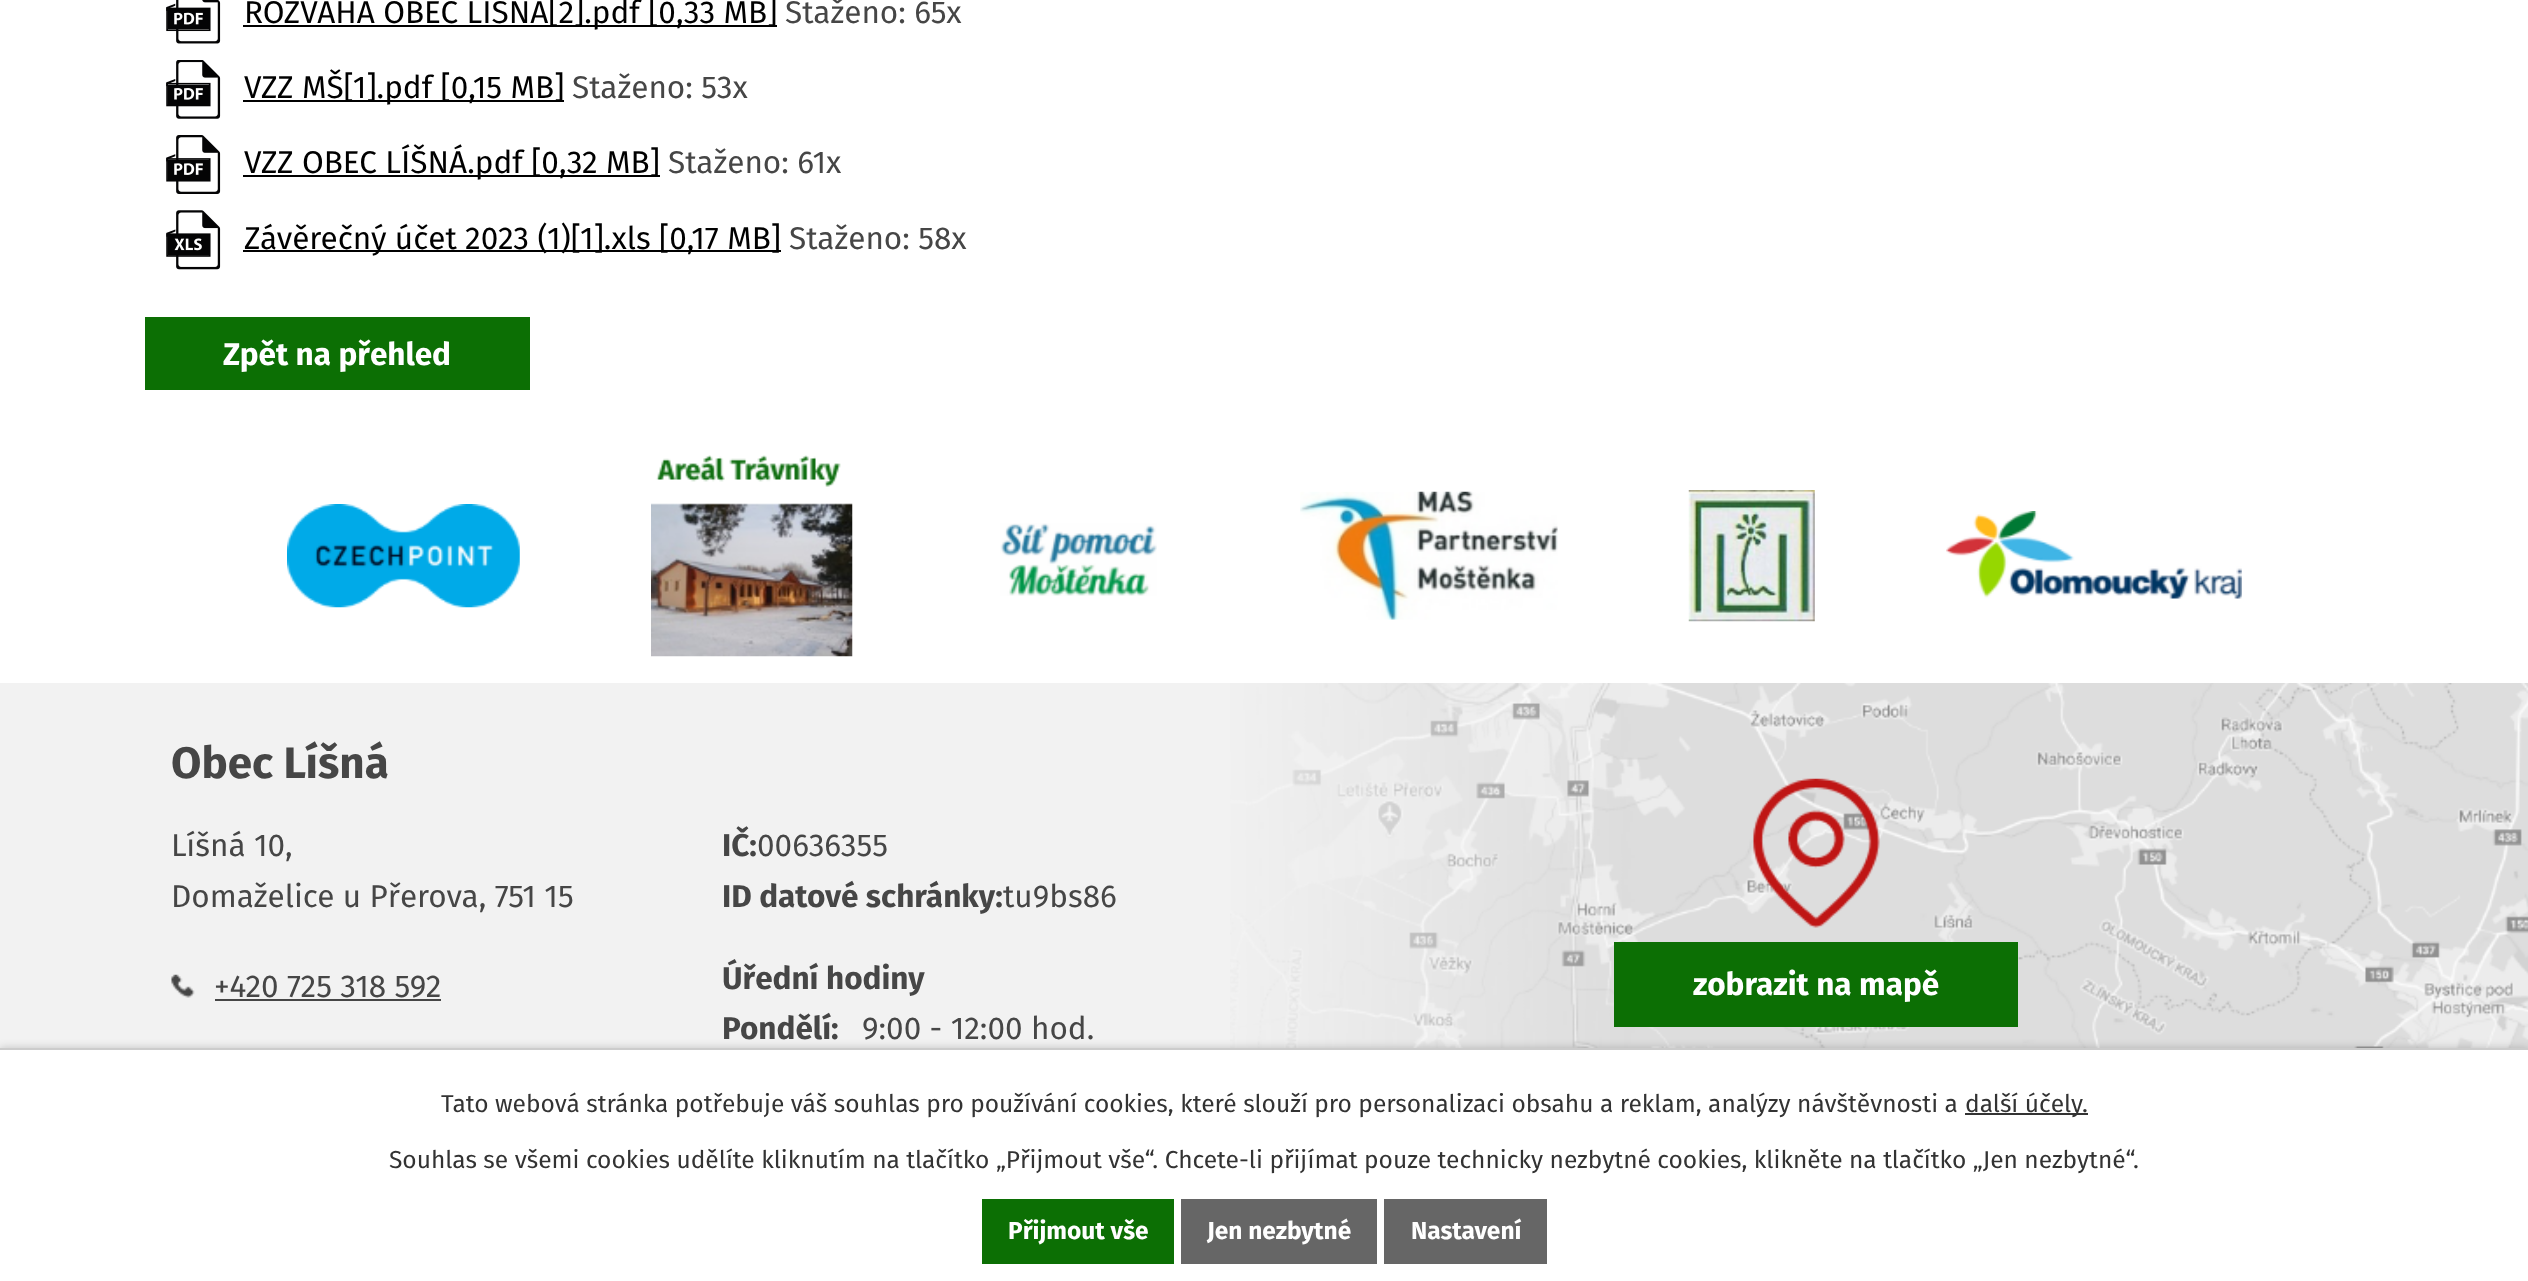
<svg xmlns="http://www.w3.org/2000/svg" width="2528" height="1281">
<style>
.a{font:31.5px Fira Sans;fill:#000}
.b{font:31.5px Fira Sans;fill:#464646}
.c{font:bold 31.5px Fira Sans;fill:#fff}
.d{font:bold 44px Fira Sans;fill:#464646}
.e{font:bold 31.5px Fira Sans;fill:#464646}
.f{font:24.5px Fira Sans;fill:#333}
.g{font:bold 24.5px Fira Sans;fill:#fff}
</style>
<rect width="100%" height="100%" fill="#fff"/>
<image href="1.png" x="166" y="0" width="55" height="44"/>
<path fill="#000" d="M243 25h534v2H243z"/>
<image href="2.png" x="166" y="60" width="55" height="59"/>
<path fill="#000" d="M243 100h321v2H243z"/>
<image href="3.png" x="166" y="135" width="55" height="59"/>
<path fill="#000" d="M243 175h417v2H243z"/>
<image href="4.png" x="166" y="210" width="55" height="60"/>
<path fill="#000" d="M243 250h538v2H243z"/>
<path fill="#0c6f04" d="M145 317h385v73H145z"/>
<path fill="#f2f2f2" d="M0 683h1230v365H0z"/>
<image href="5.png" x="1230" y="683" width="1298" height="365"/>
<image href="6.png" x="287" y="504" width="233" height="104"/>
<image href="7.png" x="651" y="455" width="202" height="202"/>
<image href="8.png" x="1000" y="523" width="157" height="73"/>
<image href="9.png" x="1300" y="491" width="258" height="129"/>
<image href="10.png" x="1688" y="490" width="127" height="132"/>
<image href="11.png" x="1946" y="511" width="296" height="88"/>
<image href="12.png" x="171" y="974" width="24" height="24"/>
<path fill="#464646" d="M215 999h226v2H215z"/>
<image href="13.png" x="1753" y="778" width="127" height="150"/>
<path fill="#0c6f04" d="M1614 942h404v85H1614z"/>
<path fill="#00000033" filter="blur(4.5px)" d="M0 1048h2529v233H0z"/>
<path fill="#fff" d="M0 1050h2528v231H0z"/>
<path fill="#ccc" d="M0 1048h2528v2H0z"/>
<path fill="#333" d="M1965 1113h123v2H1965z"/>
<path fill="#0c6f04" d="M982 1199h192v65H982z"/>
<path fill="#666" d="M1181 1199h196v65H1181z"/>
<path fill="#666" d="M1384 1199h163v65H1384z"/>
<text class="a" x="244" y="23">ROZVAHA OBEC LÍŠNÁ[2].pdf [0,33 MB]</text>
<text class="b" x="785" y="23">Staženo: 65x</text>
<text class="a" x="244" y="98">VZZ MŠ[1].pdf [0,15 MB]</text>
<text class="b" x="572" y="98">Staženo: 53x</text>
<text class="a" x="244" y="173">VZZ OBEC LÍŠNÁ.pdf [0,32 MB]</text>
<text class="b" x="668" y="173">Staženo: 61x</text>
<text class="a" x="244" y="249">Závěrečný účet 2023 (1)[1].xls [0,17 MB]</text>
<text class="b" x="789" y="249">Staženo: 58x</text>
<text class="c" x="223" y="365">Zpět na přehled</text>
<text class="d" x="171" y="778">Obec Líšná</text>
<text class="b" x="171" y="856">Líšná 10,</text>
<text class="b" x="171" y="907">Domaželice u Přerova, 751 15</text>
<text class="b" x="214" y="997">+420 725 318 592</text>
<text class="e" x="722" y="856">IČ:</text>
<text class="b" x="757" y="856">00636355</text>
<text class="e" x="722" y="907">ID datové schránky:</text>
<text class="b" x="1003" y="907">tu9bs86</text>
<text class="e" x="722" y="989">Úřední hodiny</text>
<text class="e" x="722" y="1039">Pondělí:</text>
<text class="b" x="862" y="1039">9:00 - 12:00 hod.</text>
<text class="c" x="1693" y="995">zobrazit na mapě</text>
<text class="f" x="441" y="1112">Tato webová stránka potřebuje váš souhlas pro používání cookies, které slouží pro personalizaci obsahu a reklam, analýzy návštěvnosti a</text>
<text class="f" x="1965" y="1112">další účely.</text>
<text class="f" x="389" y="1168">Souhlas se všemi cookies udělíte kliknutím na tlačítko „Přijmout vše“. Chcete-li přijímat pouze technicky nezbytné cookies, klikněte na tlačítko „Jen nezbytné“.</text>
<text class="g" x="1008" y="1239">Přijmout vše</text>
<text class="g" x="1207" y="1239">Jen nezbytné</text>
<text class="g" x="1411" y="1239">Nastavení</text>
</svg>
